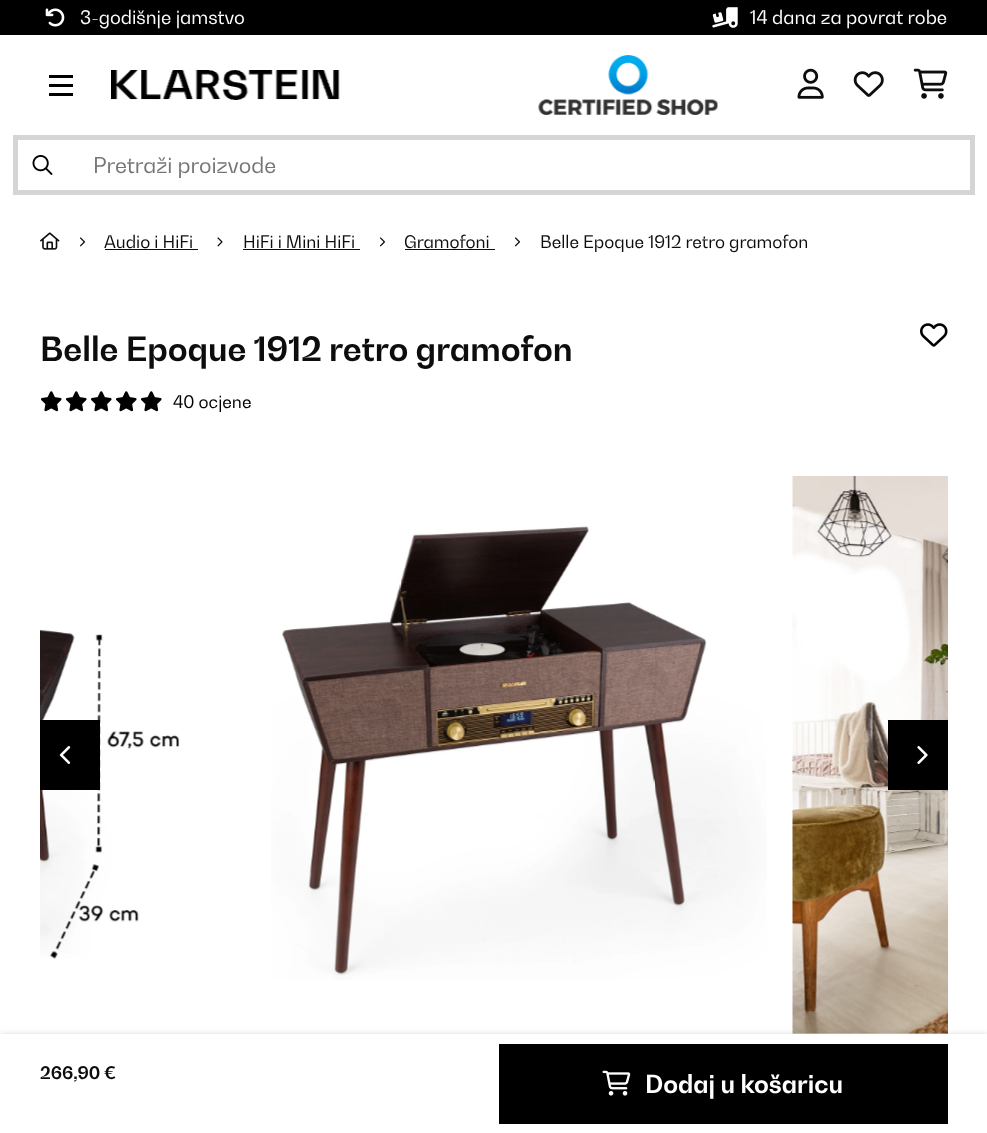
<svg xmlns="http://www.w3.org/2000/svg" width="987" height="1133">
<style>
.a{font:18.6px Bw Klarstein;fill:#fff}
.b{font:21.5px Bw Klarstein;fill:#757575}
.c{font:17.25px Bw Klarstein;fill:#0d0d0d}
.d{font:bold 33.2px Bw Klarstein;fill:#0d0d0d}
.e{font:17.25px Bw Klarstein;fill:#000}
.f{font:bold 17.25px Bw Klarstein;fill:#0d0d0d}
.g{font:bold 24.75px Bw Klarstein;fill:#fff}
</style>
<rect width="100%" height="100%" fill="#fff"/>
<path fill="#000" d="M0 0h987v35H0z"/>
<image href="1.png" x="45" y="8" width="20" height="19"/>
<image href="2.png" x="712" y="7" width="26" height="21"/>
<path fill="#000" d="M49 75h24v3H49z"/>
<path fill="#000" d="M49 84h24v3H49z"/>
<path fill="#000" d="M49 93h24v3H49z"/>
<image href="3.png" x="111" y="70" width="229" height="30"/>
<image href="4.png" x="538" y="55" width="180" height="60"/>
<image href="5.png" x="797" y="68" width="27" height="31"/>
<image href="6.png" x="853" y="71" width="31" height="26"/>
<image href="7.png" x="913" y="68" width="35" height="31"/>
<path fill="none" stroke="#d5d5d5" stroke-width="5" d="M15.5 137.5h957v55H15.5z"/>
<image href="8.png" x="32" y="155" width="21" height="20"/>
<image href="9.png" x="40" y="232" width="20" height="18"/>
<image href="10.png" x="80" y="237" width="5" height="10"/>
<path fill="#0d0d0d" d="M105 249h93v1H105z"/>
<image href="11.png" x="217" y="237" width="6" height="10"/>
<path fill="#0d0d0d" d="M243 249h117v1H243z"/>
<image href="10.png" x="380" y="237" width="5" height="10"/>
<path fill="#0d0d0d" d="M405 249h90v1H405z"/>
<image href="10.png" x="515" y="237" width="5" height="10"/>
<image href="12.png" x="920" y="323" width="28" height="24"/>
<image href="13.png" x="41" y="391" width="21" height="21"/>
<image href="13.png" x="66" y="391" width="21" height="21"/>
<image href="13.png" x="91" y="391" width="21" height="21"/>
<image href="13.png" x="116" y="391" width="21" height="21"/>
<image href="13.png" x="141" y="391" width="21" height="21"/>
<image href="14.png" x="40" y="629" width="140" height="330"/>
<image href="15.png" x="271" y="526" width="496" height="454"/>
<image href="16.png" x="792" y="476" width="156" height="558"/>
<path fill="#000" d="M40 720h60v70H40z"/>
<image href="17.png" x="59" y="746" width="12" height="18"/>
<path fill="#000" d="M888 720h60v70H888z"/>
<image href="18.png" x="917" y="746" width="11" height="18"/>
<path fill="#00000033" filter="blur(3px)" d="M0 1035h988v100H0z"/>
<path fill="#fff" d="M0 1034h987v99H0z"/>
<path fill="#000" d="M499 1044h449v80H499z"/>
<image href="19.png" x="602" y="1070" width="29" height="26"/>
<text class="a" x="80" y="24">3-godišnje jamstvo</text>
<text class="a" x="750" y="24">14 dana za povrat robe</text>
<text class="b" x="93" y="173">Pretraži proizvode</text>
<text class="c" x="104" y="248">Audio i HiFi</text>
<text class="c" x="243" y="248">HiFi i Mini HiFi</text>
<text class="c" x="404" y="248">Gramofoni</text>
<text class="c" x="540" y="248">Belle Epoque 1912 retro gramofon</text>
<text class="d" x="40" y="361">Belle Epoque 1912 retro gramofon</text>
<text class="e" x="173" y="408">40 ocjene</text>
<text class="f" x="40" y="1079">266,90 €</text>
<text class="g" x="645" y="1093">Dodaj u košaricu</text>
</svg>
